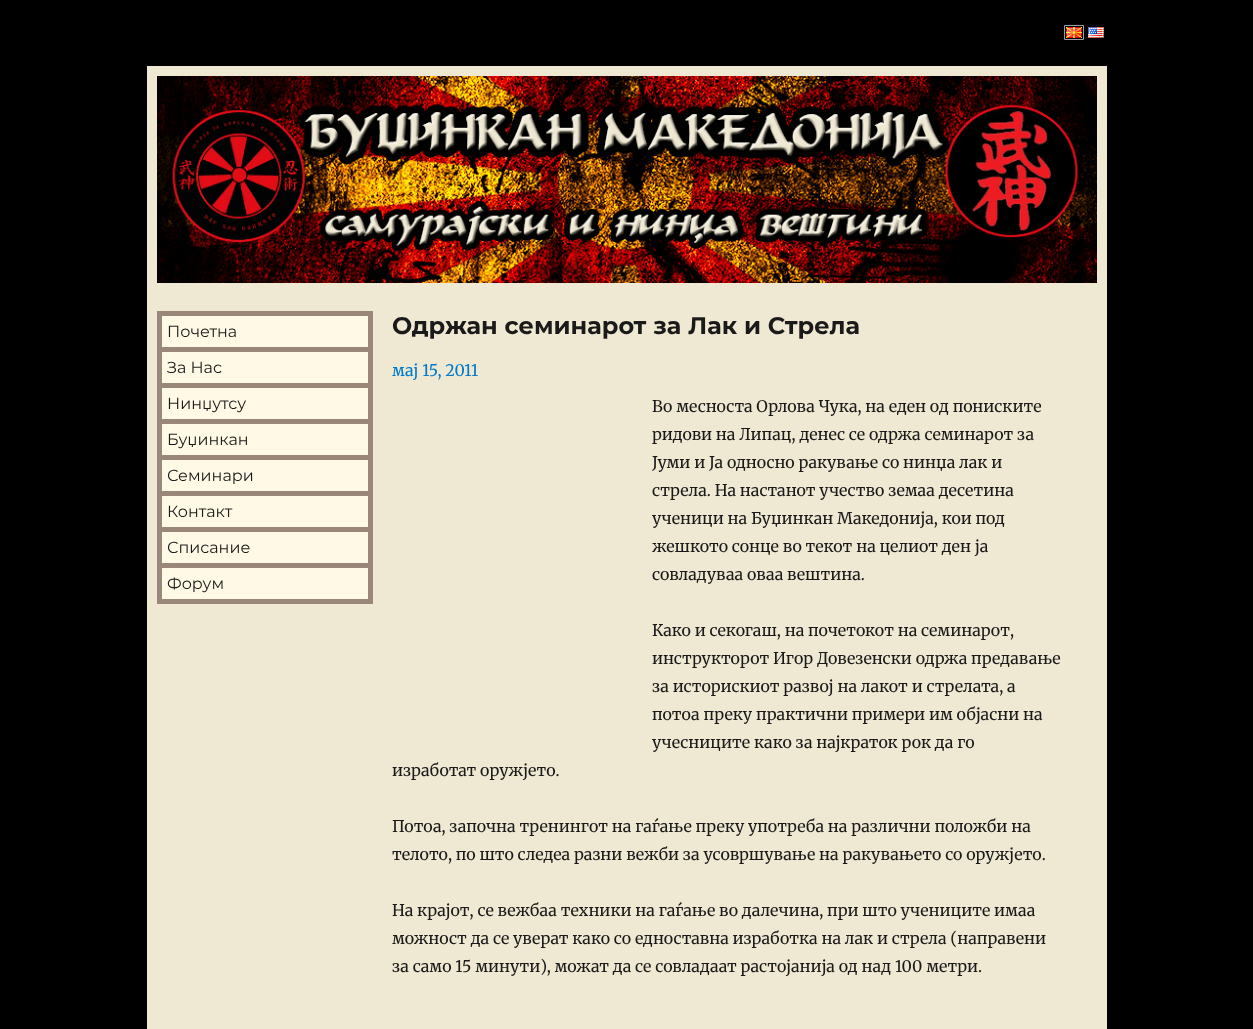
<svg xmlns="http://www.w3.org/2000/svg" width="1253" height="1029">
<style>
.a{font:16px Montserrat;fill:#1a1a1a}
.b{font:bold 24px Montserrat;fill:#1a1a1a}
.c{font:16px Merriweather;fill:#007acc}
.d{font:16px Merriweather;fill:#1a1a1a}
</style>
<rect width="100%" height="100%" fill="#000"/>
<path fill="#efe8d2" d="M147 66h960v963H147z"/>
<path fill="none" stroke="#9c9c9c" d="M1064.5 25.5h19v14H1064.5z"/>
<image href="1.png" x="1066" y="27" width="16" height="11"/>
<image href="2.png" x="1088" y="27" width="16" height="11"/>
<image href="3.png" x="157" y="76" width="940" height="207"/>
<path fill="#998779" d="M157 311h216v293H157z"/>
<path fill="#fff9e5" d="M162 316h206v31H162z"/>
<path fill="#fff9e5" d="M162 352h206v31H162z"/>
<path fill="#fff9e5" d="M162 388h206v31H162z"/>
<path fill="#fff9e5" d="M162 424h206v31H162z"/>
<path fill="#fff9e5" d="M162 460h206v31H162z"/>
<path fill="#fff9e5" d="M162 496h206v31H162z"/>
<path fill="#fff9e5" d="M162 532h206v31H162z"/>
<path fill="#fff9e5" d="M162 568h206v31H162z"/>
<text class="a" x="167" y="337">Почетна</text>
<text class="a" x="167" y="373">За Нас</text>
<text class="a" x="167" y="409">Нинџутсу</text>
<text class="a" x="167" y="445">Буџинкан</text>
<text class="a" x="167" y="481">Семинари</text>
<text class="a" x="167" y="517">Контакт</text>
<text class="a" x="167" y="553">Списание</text>
<text class="a" x="167" y="589">Форум</text>
<text class="b" x="392" y="334">Одржан семинарот за Лак и Стрела</text>
<text class="c" x="392" y="376">мај 15, 2011</text>
<text class="d" x="652" y="412">Во месноста Орлова Чука, на еден од пониските</text>
<text class="d" x="652" y="440">ридови на Липац, денес се одржа семинарот за</text>
<text class="d" x="652" y="468">Јуми и Ја односно ракување со нинџа лак и</text>
<text class="d" x="652" y="496">стрела. На настанот учество земаа десетина</text>
<text class="d" x="652" y="524">ученици на Буџинкан Македонија, кои под</text>
<text class="d" x="652" y="552">жешкото сонце во текот на целиот ден ја</text>
<text class="d" x="652" y="580">совладуваа оваа вештина.</text>
<text class="d" x="652" y="636">Како и секогаш, на почетокот на семинарот,</text>
<text class="d" x="652" y="664">инструкторот Игор Довезенски одржа предавање</text>
<text class="d" x="652" y="692">за историскиот развој на лакот и стрелата, а</text>
<text class="d" x="652" y="720">потоа преку практични примери им објасни на</text>
<text class="d" x="652" y="748">учесниците како за најкраток рок да го</text>
<text class="d" x="392" y="776">изработат оружјето.</text>
<text class="d" x="392" y="832">Потоа, започна тренингот на гаѓање преку употреба на различни положби на</text>
<text class="d" x="392" y="860">телото, по што следеа разни вежби за усовршување на ракувањето со оружјето.</text>
<text class="d" x="392" y="916">На крајот, се вежбаа техники на гаѓање во далечина, при што учениците имаа</text>
<text class="d" x="392" y="944">можност да се уверат како со едноставна изработка на лак и стрела (направени</text>
<text class="d" x="392" y="972">за само 15 минути), можат да се совладаат растојанија од над 100 метри.</text>
</svg>
